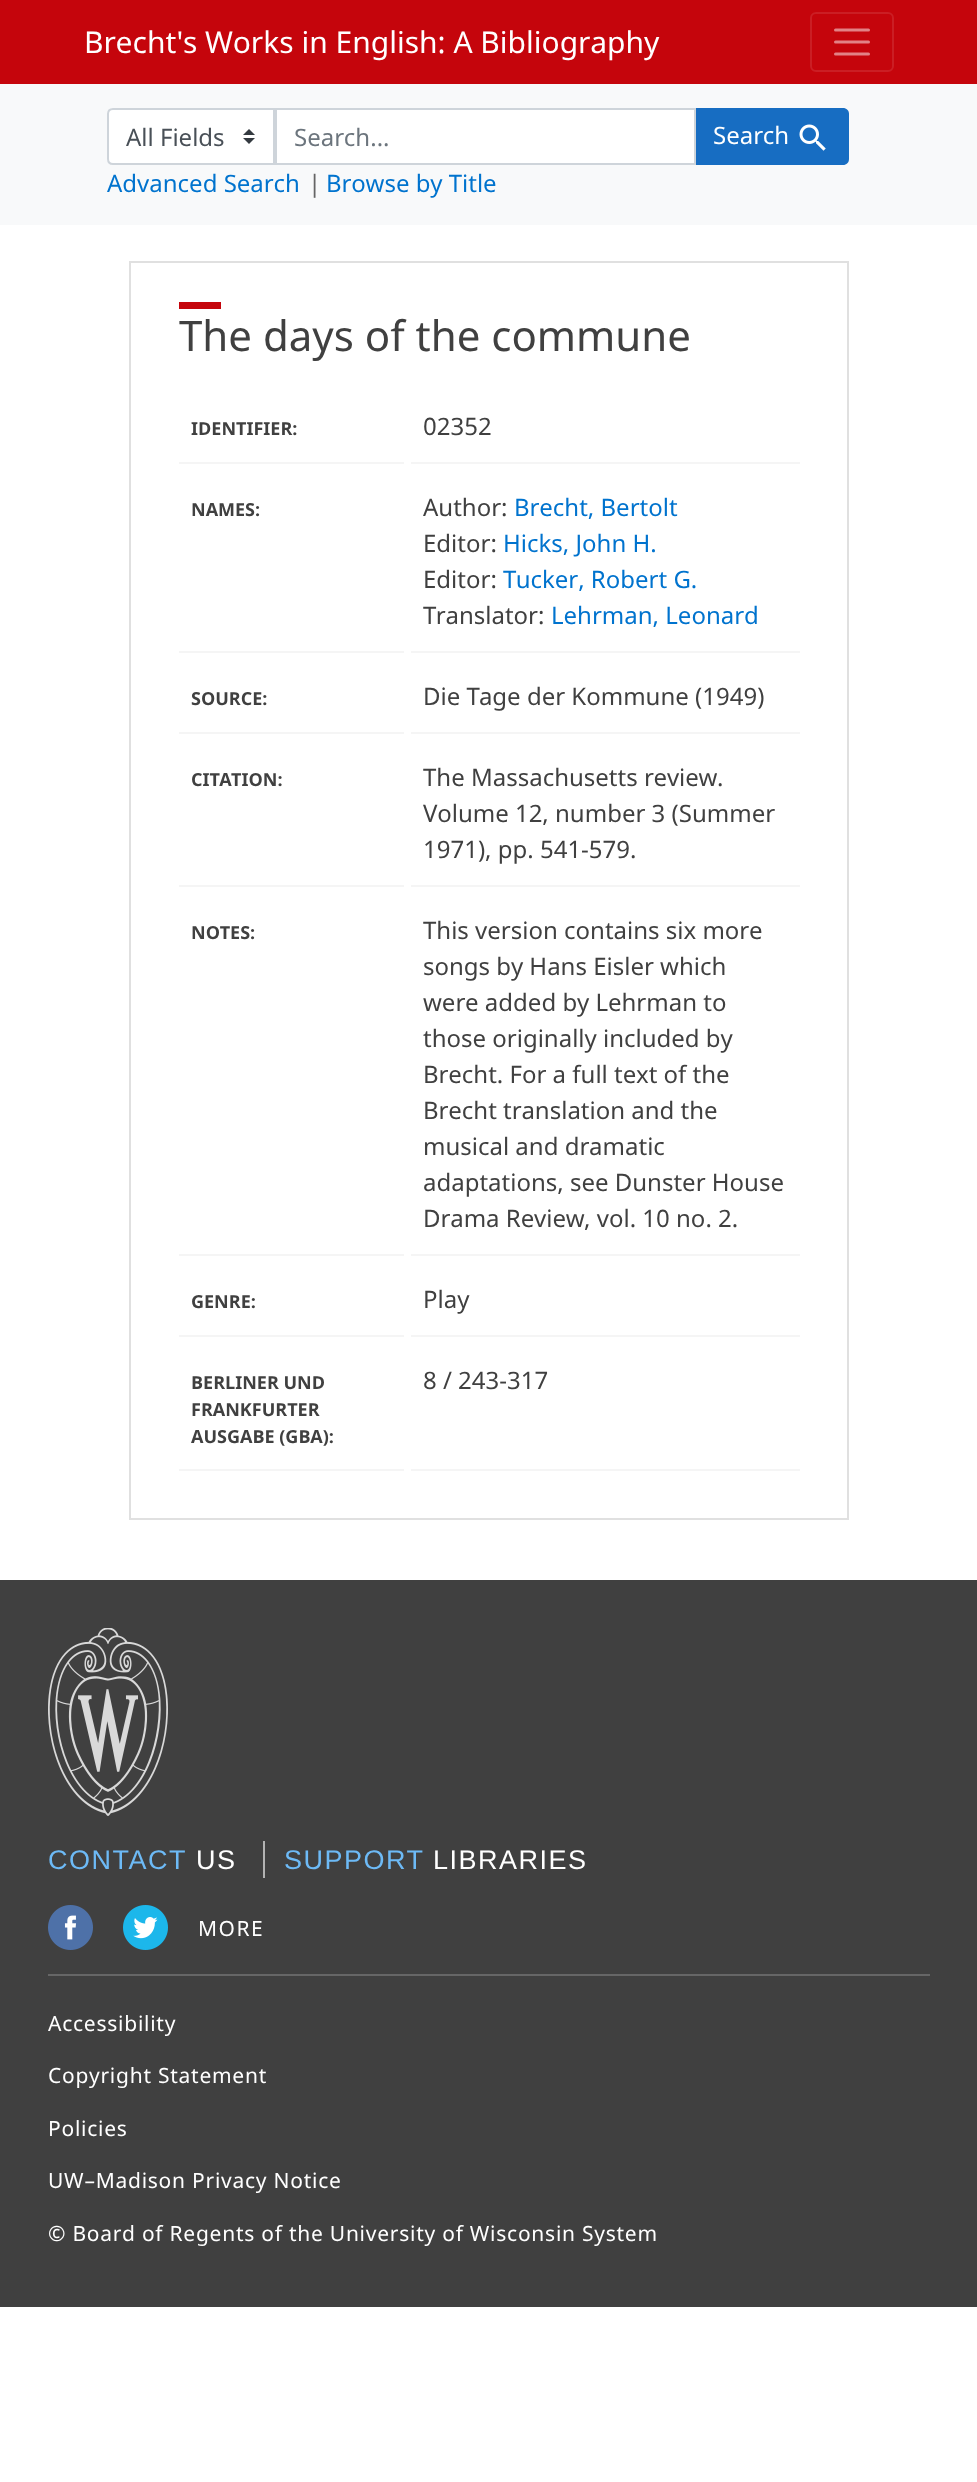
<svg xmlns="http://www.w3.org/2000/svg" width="977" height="2482">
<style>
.a{font:30px Noto Sans;fill:#fff}
.b{font:24px Noto Sans;fill:#495057}
.c{font:24px Noto Sans;fill:#6c757d}
.d{font:24px Noto Sans;fill:#fff}
.e{font:24px Noto Sans;fill:#0073ce}
.f{font:24px Noto Sans;fill:#656565}
.g{font:42px Noto Sans;fill:#404040}
.h{font:bold 18px Noto Sans;fill:#404040}
.i{font:24px Noto Sans;fill:#404040}
.j{font:27px Liberation Sans;letter-spacing:1.5px;fill:#6dbaf6}
.k{font:27px Liberation Sans;letter-spacing:1.5px;fill:#fff}
.l{font:21px Noto Sans;letter-spacing:1.5px;fill:#fff}
.m{font:21px Noto Sans;letter-spacing:0.75px;fill:#fff}
</style>
<rect width="100%" height="100%" fill="#fff"/>
<path fill="#c5050c" d="M0 0h977v84H0z"/>
<rect fill="none" stroke="#cb1e24" stroke-width="2" x="811" y="13" width="82" height="58" rx="5"/>
<path fill="none" stroke="#e28286" stroke-width="3" stroke-linecap="round" d="M835.5 30h33m-33 12h33m-33 12h33"/>
<path fill="#f8f9fa" d="M0 84h977v141H0z"/>
<path fill="#fff" d="M113 108h162v57h-162c-3.5 0-6-2.5-6-6v-45c0-3.5 2.5-6 6-6z"/>
<image href="1.png" x="243" y="129" width="12" height="15"/>
<path fill="none" stroke="#ced4da" stroke-width="2" d="M113 109h161v55h-161c-3 0-5-2-5-5v-45c0-3 2-5 5-5z"/>
<path fill="#176dc2" d="M695 108h148c3.5 0 6 2.5 6 6v45c0 3.5-2.5 6-6 6h-148z"/>
<path fill="#fff" stroke="#ced4da" stroke-width="2" d="M276 109h419v55H276z"/>
<image href="2.png" x="799" y="124" width="27" height="27"/>
<path fill="none" stroke="#e0e0e0" stroke-width="2" d="M130 262h718v1257H130z"/>
<path fill="#c5050c" d="M179 302h42v7H179z"/>
<path fill="#f5f5f5" d="M179 462h225v2H179z"/>
<path fill="#f5f5f5" d="M411 462h389v2H411z"/>
<path fill="#f5f5f5" d="M179 651h225v2H179z"/>
<path fill="#f5f5f5" d="M411 651h389v2H411z"/>
<path fill="#f5f5f5" d="M179 732h225v2H179z"/>
<path fill="#f5f5f5" d="M411 732h389v2H411z"/>
<path fill="#f5f5f5" d="M179 885h225v2H179z"/>
<path fill="#f5f5f5" d="M411 885h389v2H411z"/>
<path fill="#f5f5f5" d="M179 1254h225v2H179z"/>
<path fill="#f5f5f5" d="M411 1254h389v2H411z"/>
<path fill="#f5f5f5" d="M179 1335h225v2H179z"/>
<path fill="#f5f5f5" d="M411 1335h389v2H411z"/>
<path fill="#f5f5f5" d="M179 1469h225v2H179z"/>
<path fill="#f5f5f5" d="M411 1469h389v2H411z"/>
<path fill="#404040" d="M0 1580h977v727H0z"/>
<image href="3.png" x="48" y="1628" width="120" height="188"/>
<path fill="#b3b3b3" d="M263 1841h2v37H263z"/>
<image href="4.png" x="48" y="1905" width="45" height="45"/>
<image href="5.png" x="123" y="1905" width="45" height="45"/>
<path fill="#666" d="M48 1974h882v2H48z"/>
<text class="a" x="84" y="53">Brecht's Works in English: A Bibliography</text>
<text class="b" x="126" y="146">All Fields</text>
<text class="c" x="294" y="146">Search...</text>
<text class="d" x="713" y="144">Search</text>
<text class="e" x="107" y="192">Advanced Search</text>
<text class="f" x="308" y="192">|</text>
<text class="e" x="326" y="192">Browse by Title</text>
<text class="g" x="179" y="351">The days of the commune</text>
<text class="h" x="191" y="435">IDENTIFIER:</text>
<text class="i" x="423" y="435">02352</text>
<text class="h" x="191" y="516">NAMES:</text>
<text class="i" x="423" y="516">Author:</text>
<text class="e" x="514" y="516">Brecht, Bertolt</text>
<text class="i" x="423" y="552">Editor:</text>
<text class="e" x="503" y="552">Hicks, John H.</text>
<text class="i" x="423" y="588">Editor:</text>
<text class="e" x="503" y="588">Tucker, Robert G.</text>
<text class="i" x="423" y="624">Translator:</text>
<text class="e" x="551" y="624">Lehrman, Leonard</text>
<text class="h" x="191" y="705">SOURCE:</text>
<text class="i" x="423" y="705">Die Tage der Kommune (1949)</text>
<text class="h" x="191" y="786">CITATION:</text>
<text class="i" x="423" y="786">The Massachusetts review.</text>
<text class="i" x="423" y="822">Volume 12, number 3 (Summer</text>
<text class="i" x="423" y="858">1971), pp. 541-579.</text>
<text class="h" x="191" y="939">NOTES:</text>
<text class="i" x="423" y="939">This version contains six more</text>
<text class="i" x="423" y="975">songs by Hans Eisler which</text>
<text class="i" x="423" y="1011">were added by Lehrman to</text>
<text class="i" x="423" y="1047">those originally included by</text>
<text class="i" x="423" y="1083">Brecht. For a full text of the</text>
<text class="i" x="423" y="1119">Brecht translation and the</text>
<text class="i" x="423" y="1155">musical and dramatic</text>
<text class="i" x="423" y="1191">adaptations, see Dunster House</text>
<text class="i" x="423" y="1227">Drama Review, vol. 10 no. 2.</text>
<text class="h" x="191" y="1308">GENRE:</text>
<text class="i" x="423" y="1308">Play</text>
<text class="h" x="191" y="1389">BERLINER UND</text>
<text class="h" x="191" y="1416">FRANKFURTER</text>
<text class="h" x="191" y="1443">AUSGABE (GBA):</text>
<text class="i" x="423" y="1389">8 / 243-317</text>
<text class="j" x="48" y="1869">CONTACT</text>
<text class="k" x="196" y="1869">US</text>
<text class="j" x="284" y="1869">SUPPORT</text>
<text class="k" x="433" y="1869">LIBRARIES</text>
<text class="l" x="198" y="1936">MORE</text>
<text class="m" x="48" y="2031">Accessibility</text>
<text class="m" x="48" y="2083">Copyright Statement</text>
<text class="m" x="48" y="2136">Policies</text>
<text class="m" x="48" y="2188">UW–Madison Privacy Notice</text>
<text class="m" x="48" y="2241">© Board of Regents of the University of Wisconsin System</text>
</svg>
